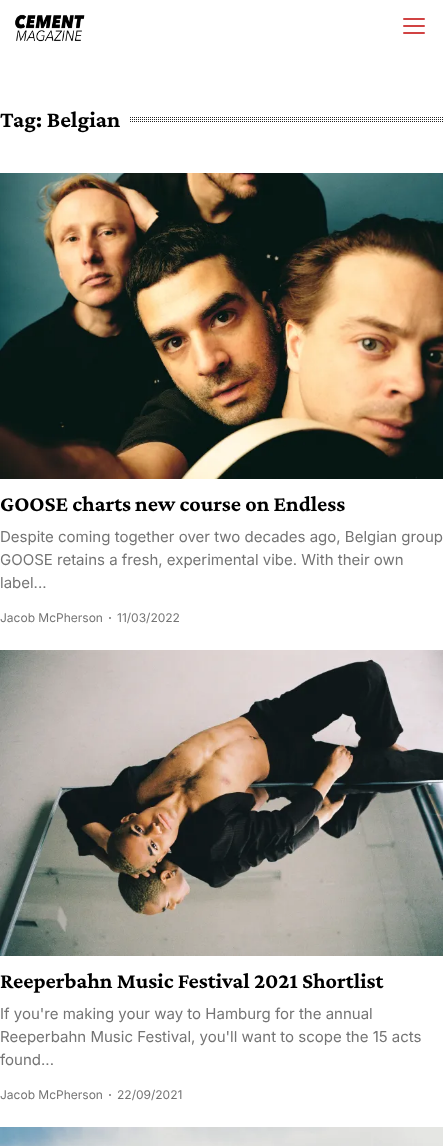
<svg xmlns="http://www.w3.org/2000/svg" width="443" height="1146">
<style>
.a{font:bold 23px Crimson Pro;fill:#000}
.b{font:bold 22px Crimson Pro;fill:#000}
.c{font:15px Inter;fill:#747474}
.d{font:12px Inter;fill:#747474}
</style>
<rect width="100%" height="100%" fill="#fff"/>
<image href="1.png" x="15" y="14" width="70" height="28"/>
<rect fill="#d14343" x="403" y="18" width="22" height="2" rx="1"/>
<rect fill="#d14343" x="403" y="25" width="22" height="2" rx="1"/>
<rect fill="#d14343" x="403" y="32" width="22" height="2" rx="1"/>
<path fill="none" stroke="#222" stroke-dasharray="1 1" d="M0 119.5h443"/>
<path fill="none" stroke="#222" stroke-dasharray="1 1" d="M0 117.5h443"/>
<path fill="none" stroke="#222" stroke-dasharray="1 1" d="M0 121.5h443"/>
<path fill="#fff" d="M0 117h129v5H0z"/>
<image href="2.png" x="0" y="173" width="443" height="306"/>
<path fill="#999" d="M109 617h2v2H109z"/>
<image href="3.png" x="0" y="650" width="443" height="306"/>
<path fill="#999" d="M109 1094h2v2H109z"/>
<image href="4.png" x="0" y="1127" width="443" height="19"/>
<text class="a" x="0" y="127">Tag: Belgian</text>
<text class="b" x="0" y="511">GOOSE charts new course on Endless</text>
<text class="c" x="0" y="542">Despite coming together over two decades ago, Belgian group</text>
<text class="c" x="0" y="565">GOOSE retains a fresh, experimental vibe. With their own</text>
<text class="c" x="0" y="588">label...</text>
<text class="d" x="0" y="622">Jacob McPherson</text>
<text class="d" x="117" y="622">11/03/2022</text>
<text class="b" x="0" y="988">Reeperbahn Music Festival 2021 Shortlist</text>
<text class="c" x="0" y="1019">If you're making your way to Hamburg for the annual</text>
<text class="c" x="0" y="1042">Reeperbahn Music Festival, you'll want to scope the 15 acts</text>
<text class="c" x="0" y="1065">found...</text>
<text class="d" x="0" y="1099">Jacob McPherson</text>
<text class="d" x="117" y="1099">22/09/2021</text>
</svg>
